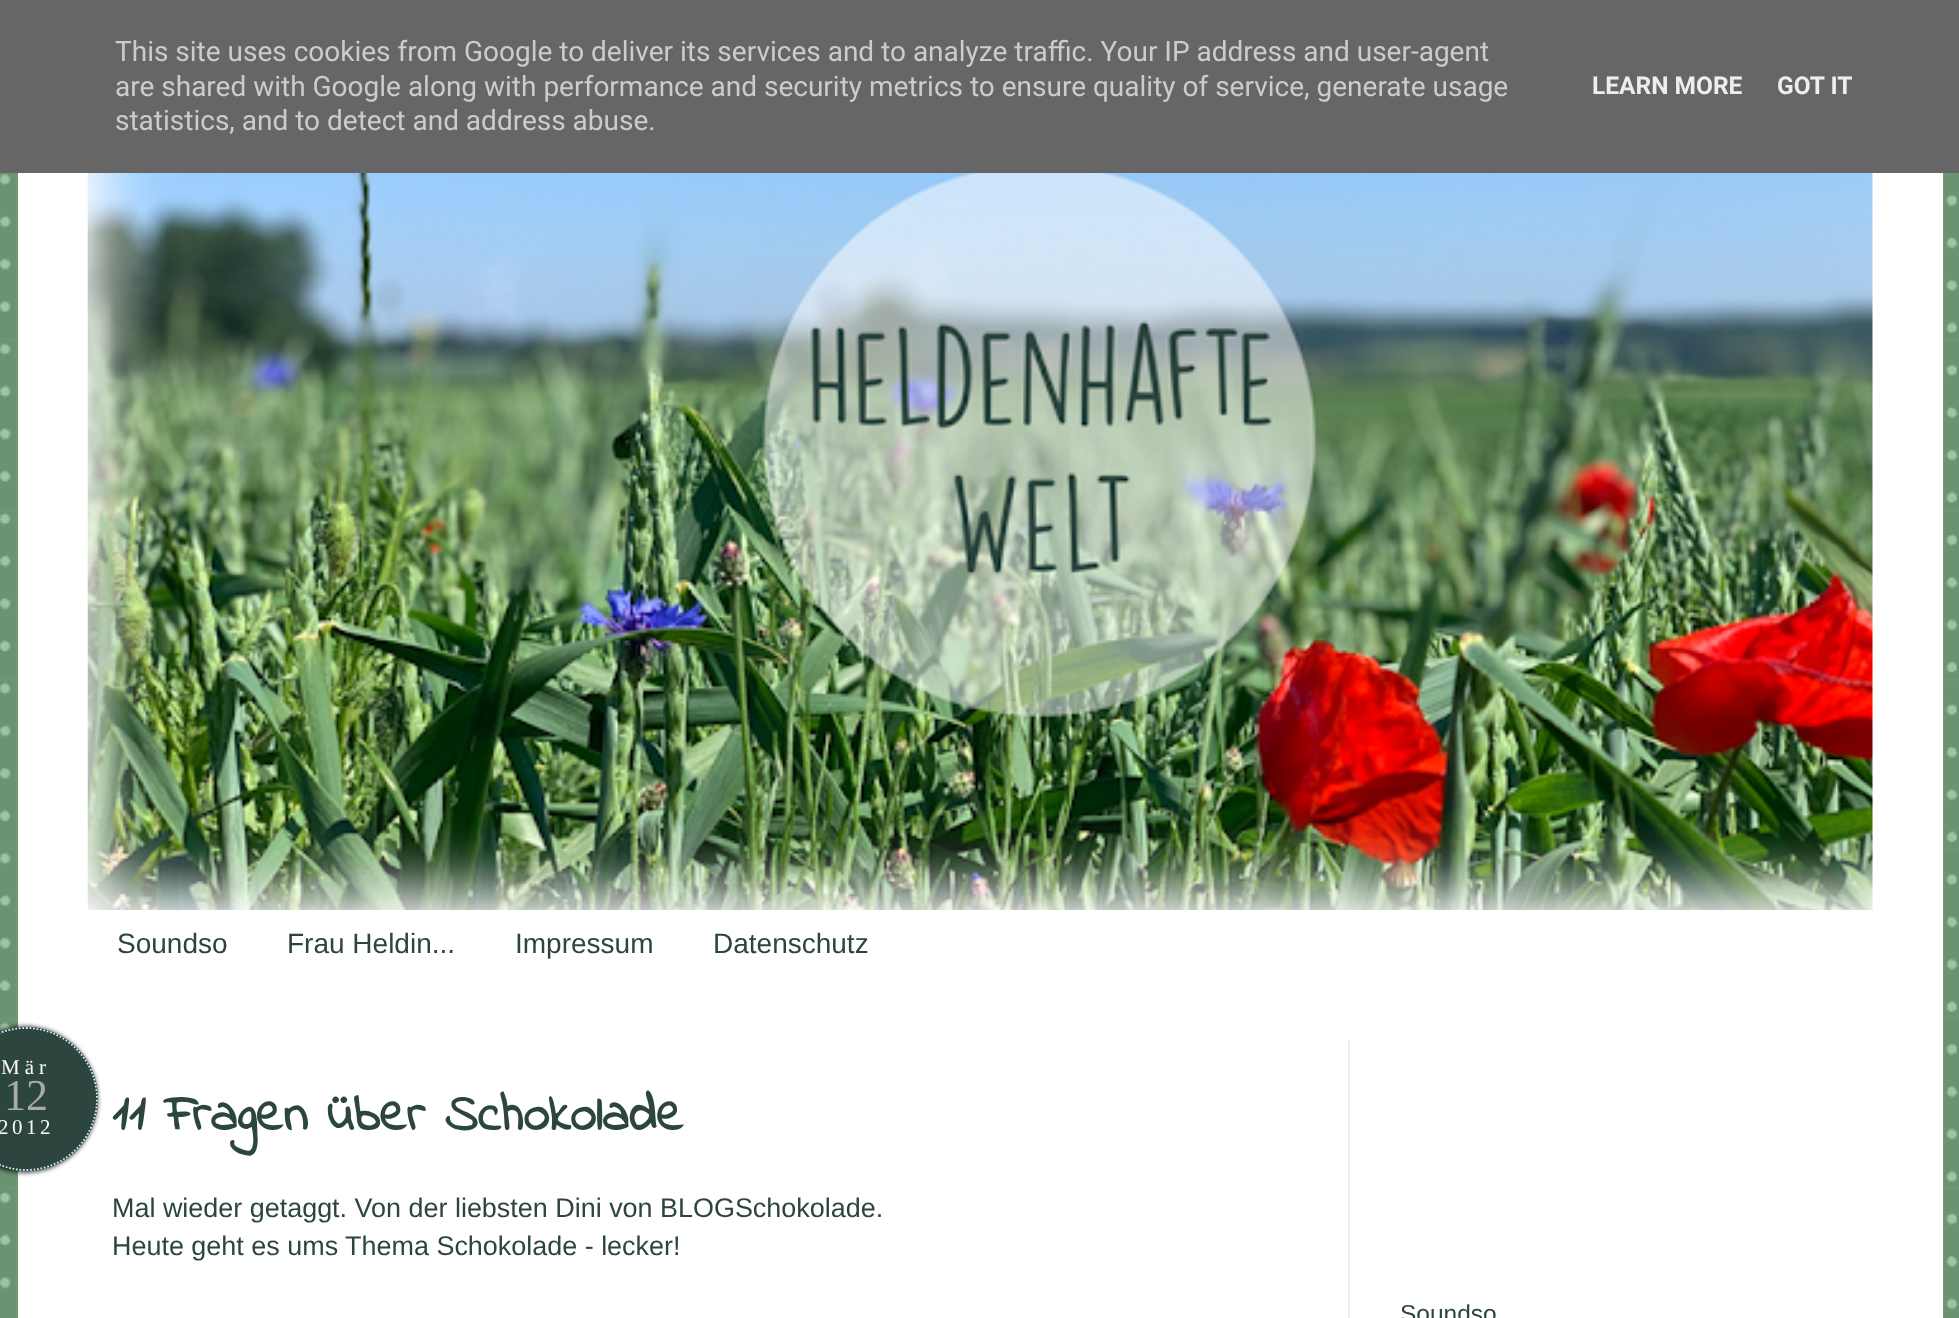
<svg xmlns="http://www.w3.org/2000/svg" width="1959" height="1318">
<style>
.a{font:28px Roboto;fill:#ccc}
.b{font:bold 24.5px Roboto;fill:#eee}
.c{font:28px Liberation Sans;fill:#2c453e}
.d{font:21px Liberation Serif;letter-spacing:5px;fill:#f9f9f9}
.e{font:44px Liberation Serif;fill:#aaa}
.f{font:21px Liberation Serif;letter-spacing:3.5px;fill:#f9f9f9}
.g{font:bold 52.5px Indie Flower;fill:#2c453e}
.h{font:26.95px Liberation Sans;fill:#2c453e}
.i{font:24.5px Liberation Sans;fill:#2c453e}
</style>
<rect width="100%" height="100%" fill="#86b78e"/>
<image href="1.png" x="0" y="700" width="1959" height="618"/>
<path fill="#666" d="M0 0h1959v173H0z"/>
<image href="2.png" x="0" y="173" width="1959" height="527"/>
<path fill="#fff" d="M18 173h1925v1145H18z"/>
<image href="3.png" x="87" y="173" width="1786" height="737"/>
<path fill="#eee" d="M1348 1040h2v278H1348z"/>
<rect fill="#000000b3" filter="blur(2px)" x="-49" y="1026" width="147" height="147" rx="73.5"/>
<rect fill="#2c453e" x="-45" y="1027" width="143" height="144" rx="71.5"/>
<path fill="none" stroke="#d6ecf9" stroke-width="1.8" stroke-dasharray="1.75 1.75" d="M26 1028c39.5 0 71 32 71 71c0 39-31.5 71-71 71c-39 0-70.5-32-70.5-71c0-39 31.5-71 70.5-71z"/>
<text class="a" x="115" y="61">This site uses cookies from Google to deliver its services and to analyze traffic. Your IP address and user-agent</text>
<text class="a" x="115" y="96">are shared with Google along with performance and security metrics to ensure quality of service, generate usage</text>
<text class="a" x="115" y="130">statistics, and to detect and address abuse.</text>
<text class="b" x="1592" y="94">LEARN MORE</text>
<text class="b" x="1777" y="94">GOT IT</text>
<text class="c" x="117" y="953">Soundso</text>
<text class="c" x="287" y="953">Frau Heldin...</text>
<text class="c" x="515" y="953">Impressum</text>
<text class="c" x="713" y="953">Datenschutz</text>
<text class="d" x="1" y="1074">Mär</text>
<text class="e" x="4" y="1110">12</text>
<text class="f" x="-2" y="1134">2012</text>
<text class="g" x="112" y="1130">11 Fragen über Schokolade</text>
<text class="h" x="112" y="1217">Mal wieder getaggt. Von der liebsten Dini von BLOGSchokolade.</text>
<text class="h" x="112" y="1255">Heute geht es ums Thema Schokolade - lecker!</text>
<text class="i" x="1400" y="1322">Soundso</text>
</svg>
